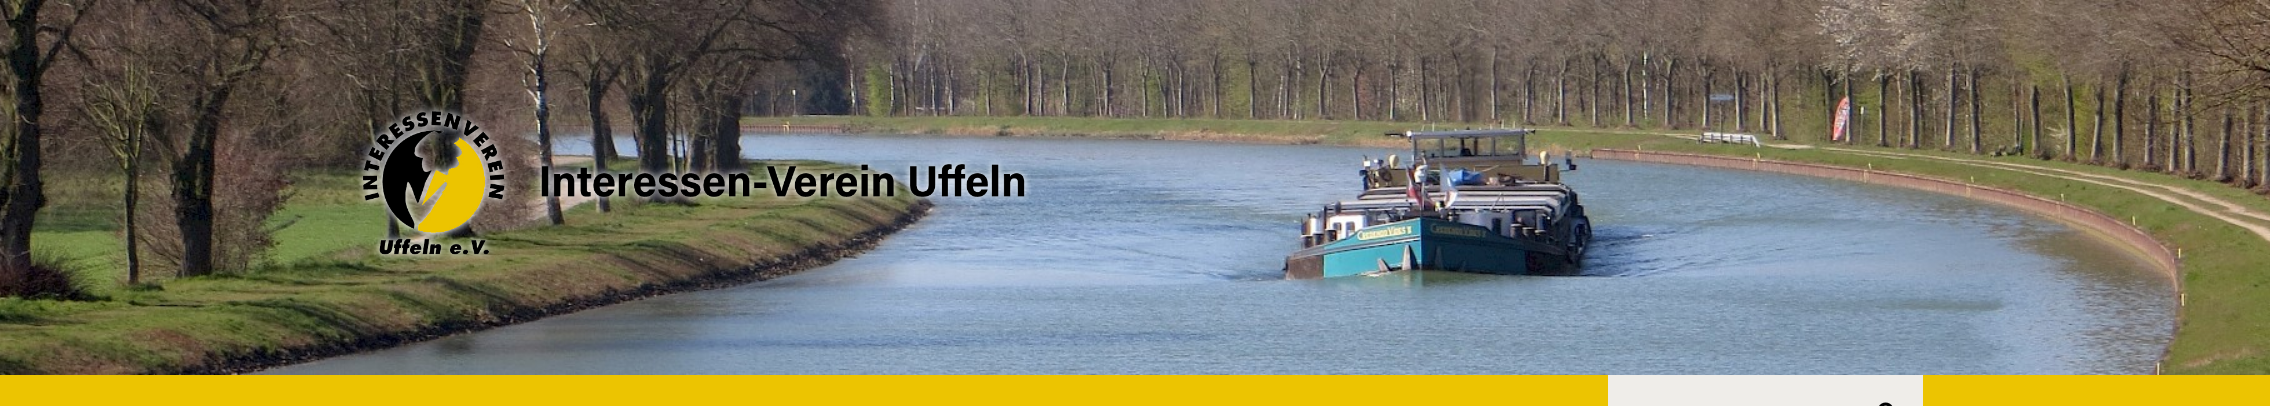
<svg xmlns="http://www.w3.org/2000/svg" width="2270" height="406">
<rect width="100%" height="100%" fill="#ecc401"/>
<image href="1.png" x="0" y="0" width="2270" height="375"/>
<image href="2.png" x="356" y="105" width="675" height="156"/>
<path fill="#efede9" d="M1608 375h315v31H1608z"/>
<image href="3.png" x="1879" y="402" width="14" height="4"/>
</svg>
